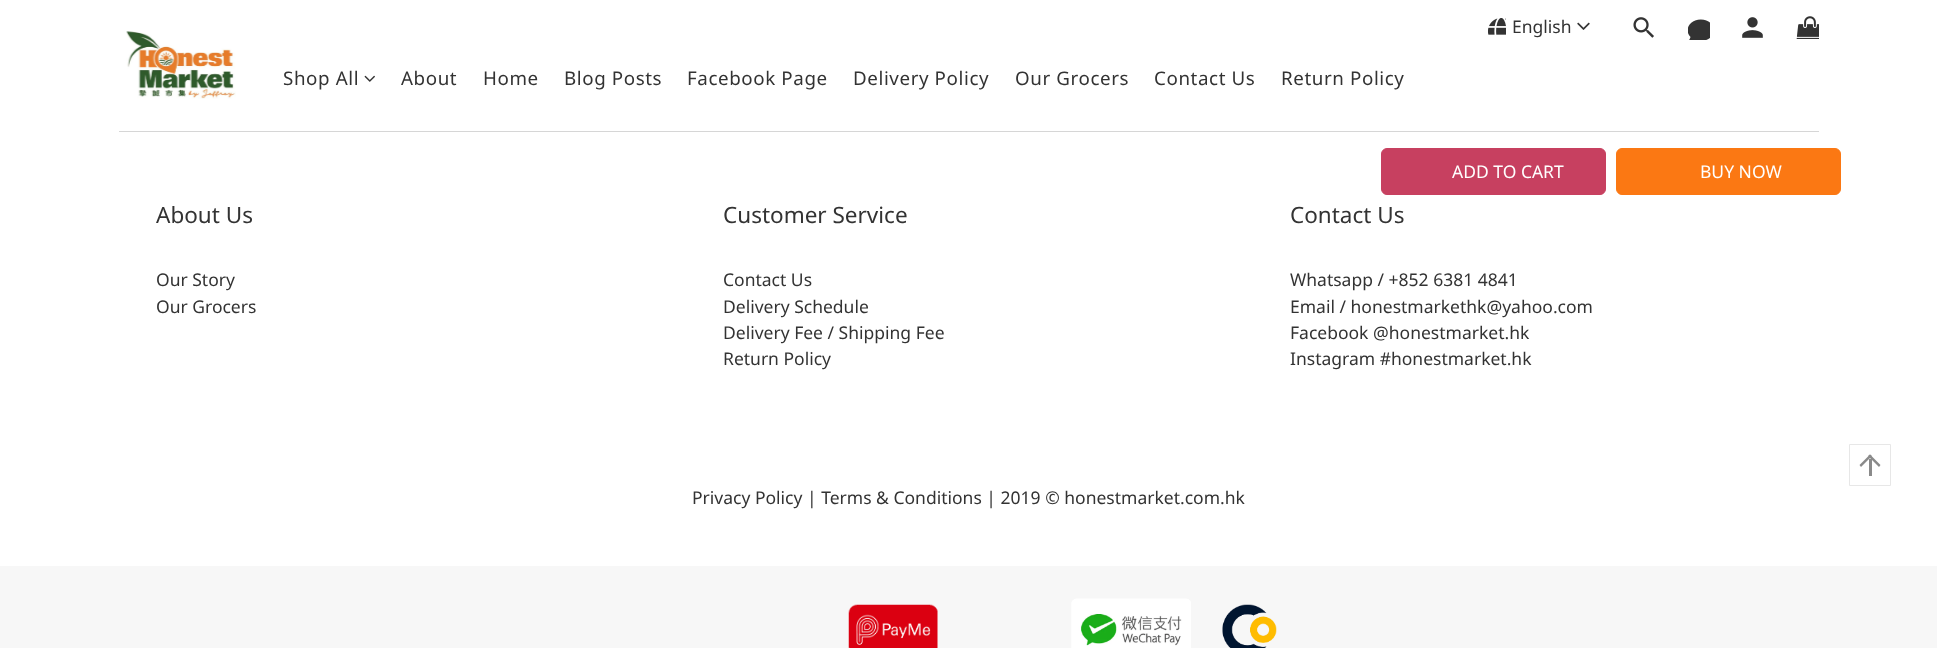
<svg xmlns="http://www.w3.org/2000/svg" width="1937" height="648">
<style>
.a{font:17.5px Noto Sans;fill:#333}
.b{font:18.75px Noto Sans;letter-spacing:0.6px;fill:#333}
.c{font:17.5px Noto Sans;fill:#fff}
.d{font:22.5px Noto Sans;fill:#333}
</style>
<rect width="100%" height="100%" fill="#fff"/>
<image href="1.png" x="1488" y="18" width="18" height="17"/>
<image href="2.png" x="1577" y="22" width="13" height="8"/>
<image href="3.png" x="1633" y="17" width="21" height="21"/>
<image href="4.png" x="1688" y="19" width="22" height="21"/>
<image href="5.png" x="1742" y="17" width="21" height="21"/>
<image href="6.png" x="1796" y="16" width="23" height="23"/>
<image href="7.png" x="126" y="31" width="110" height="68"/>
<image href="8.png" x="364" y="75" width="11" height="7"/>
<rect fill="#c74060" stroke="#c74060" x="1381.5" y="148.5" width="224" height="46" rx="5.5"/>
<rect fill="#fb7813" stroke="#fb7813" x="1616.5" y="148.5" width="224" height="46" rx="5.5"/>
<path fill="#d6d6d6" d="M119 131h1700v1H119z"/>
<path fill="#f7f7f7" d="M0 566h1937v82H0z"/>
<image href="9.png" x="848" y="604" width="90" height="44"/>
<image href="10.png" x="1071" y="598" width="120" height="50"/>
<image href="11.png" x="1222" y="604" width="55" height="44"/>
<path fill="none" stroke="#e7e7e7" d="M1849.5 444.5h41v41H1849.5z"/>
<path fill="#8a8a8a" d="M1870 454.5l10.5 10.5l-1.5 2l-11-11z"/>
<path fill="#8a8a8a" d="M1870 454.5l2 1.5l-11 11l-1.5-2z"/>
<path fill="#8a8a8a" d="M1869 459h3v17H1869z"/>
<text class="a" x="1512" y="33">English</text>
<text class="b" x="283" y="85">Shop All</text>
<text class="b" x="401" y="85">About</text>
<text class="b" x="483" y="85">Home</text>
<text class="b" x="564" y="85">Blog Posts</text>
<text class="b" x="687" y="85">Facebook Page</text>
<text class="b" x="853" y="85">Delivery Policy</text>
<text class="b" x="1015" y="85">Our Grocers</text>
<text class="b" x="1154" y="85">Contact Us</text>
<text class="b" x="1281" y="85">Return Policy</text>
<text class="c" x="1452" y="178">ADD TO CART</text>
<text class="c" x="1700" y="178">BUY NOW</text>
<text class="d" x="156" y="223">About Us</text>
<text class="a" x="156" y="286">Our Story</text>
<text class="a" x="156" y="313">Our Grocers</text>
<text class="d" x="723" y="223">Customer Service</text>
<text class="a" x="723" y="286">Contact Us</text>
<text class="a" x="723" y="313">Delivery Schedule</text>
<text class="a" x="723" y="339">Delivery Fee / Shipping Fee</text>
<text class="a" x="723" y="365">Return Policy</text>
<text class="d" x="1290" y="223">Contact Us</text>
<text class="a" x="1290" y="286">Whatsapp / +852 6381 4841</text>
<text class="a" x="1290" y="313">Email / honestmarkethk@yahoo.com</text>
<text class="a" x="1290" y="339">Facebook @honestmarket.hk</text>
<text class="a" x="1290" y="365">Instagram #honestmarket.hk</text>
<text class="a" x="692" y="504">Privacy Policy | Terms &amp; Conditions | 2019 © honestmarket.com.hk</text>
</svg>
